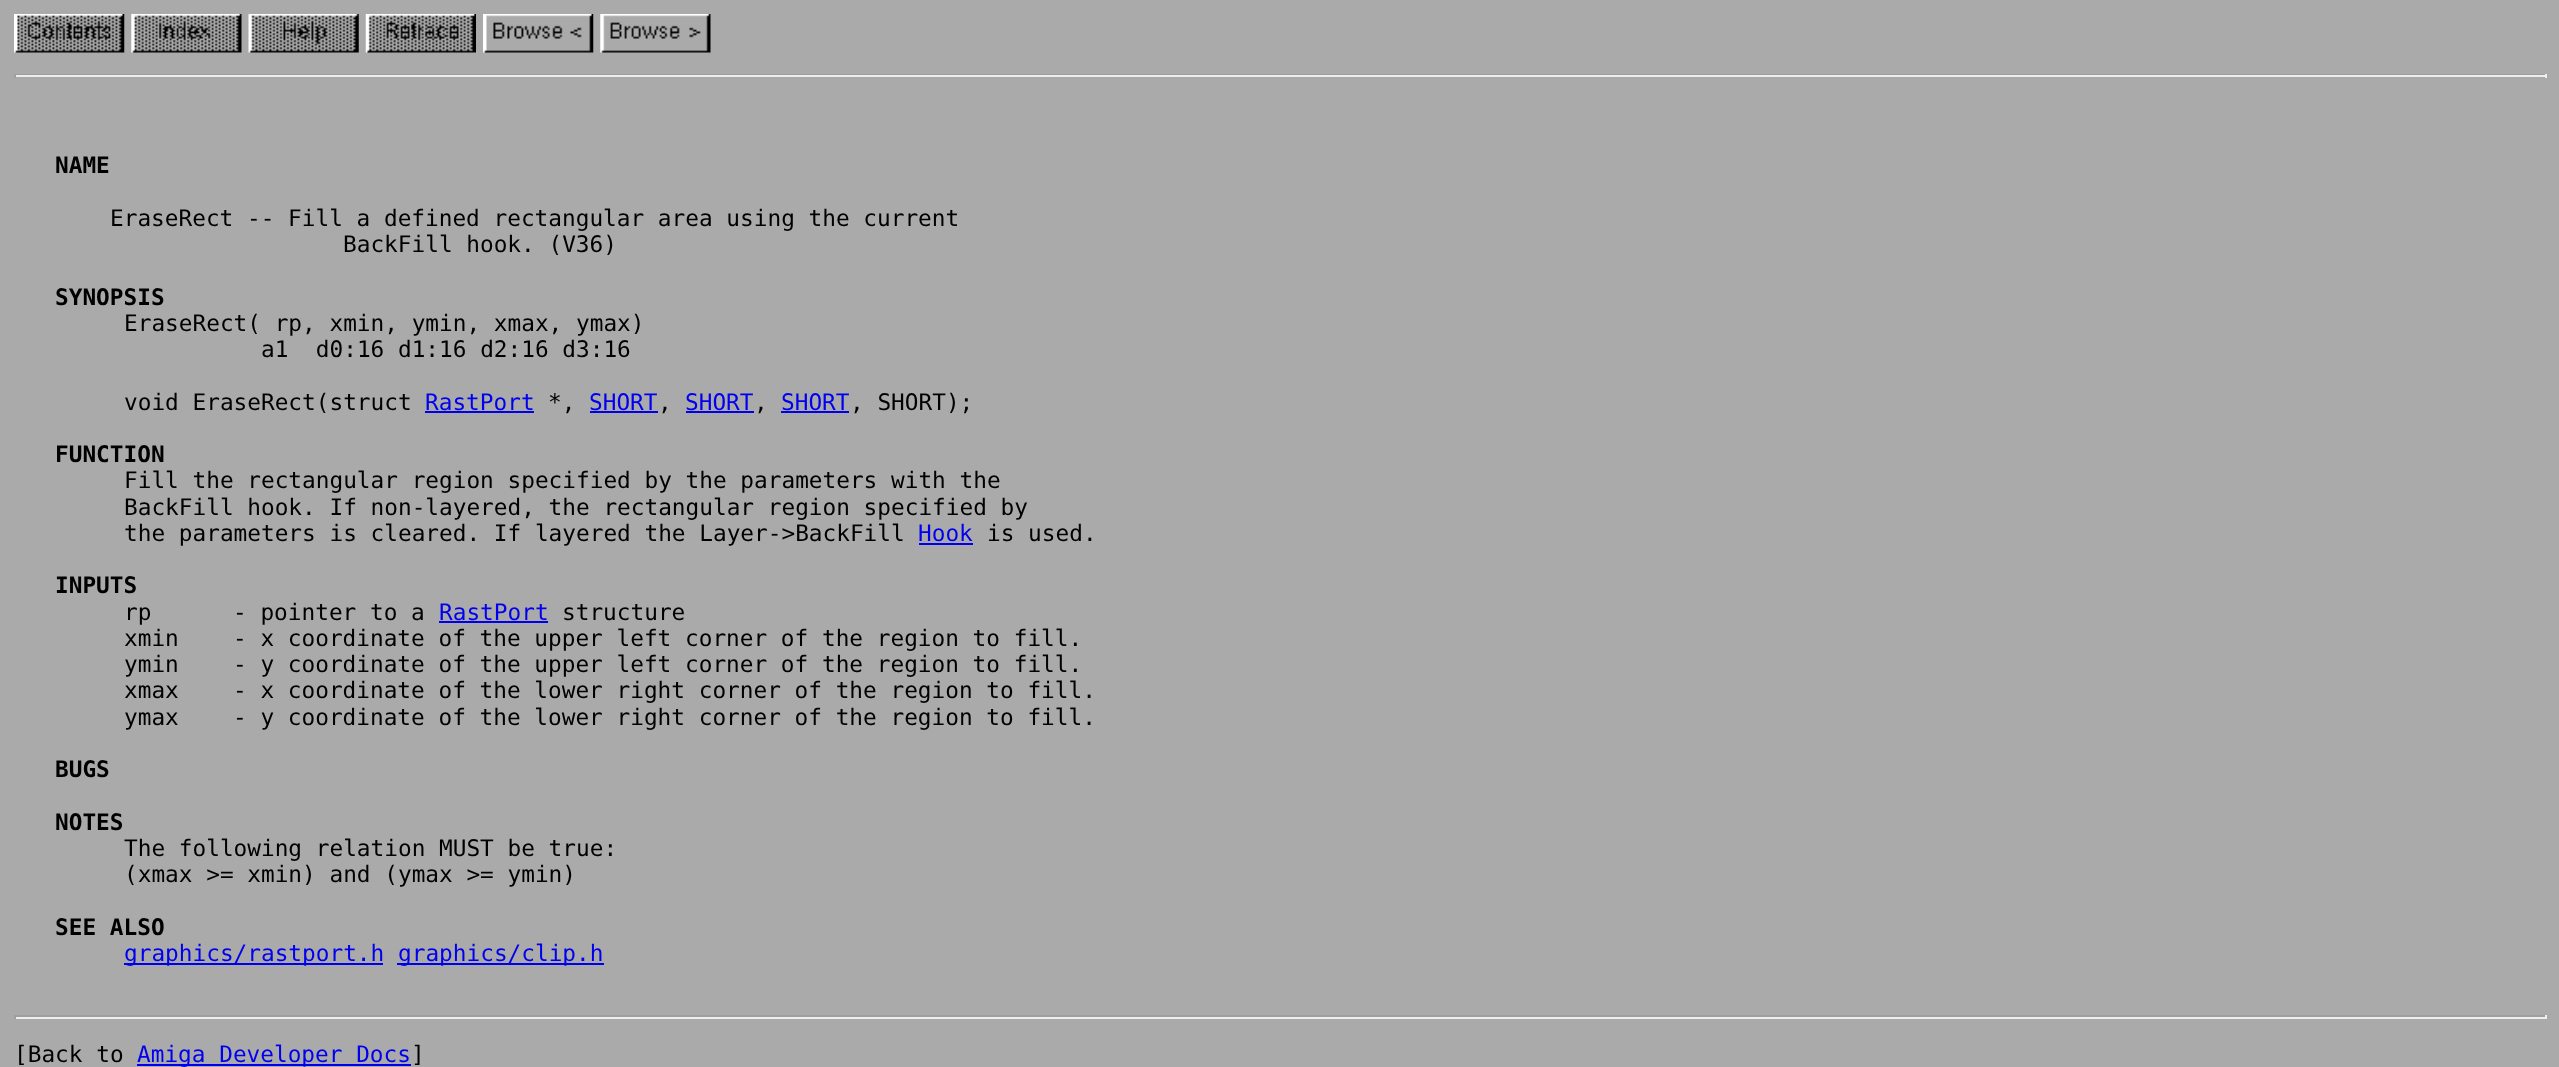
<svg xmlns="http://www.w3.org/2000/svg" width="2559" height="1067">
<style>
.a{font:bold 22.75px DejaVu Sans Mono;fill:#000}
.b{font:22.75px DejaVu Sans Mono;fill:#000}
.c{font:22.75px DejaVu Sans Mono;fill:#00e}
</style>
<rect width="100%" height="100%" fill="#aaa"/>
<image href="1.png" x="14" y="14" width="111" height="39"/>
<image href="2.png" x="131" y="14" width="111" height="39"/>
<image href="3.png" x="248" y="14" width="111" height="39"/>
<image href="4.png" x="365" y="14" width="111" height="39"/>
<image href="5.png" x="483" y="14" width="111" height="39"/>
<image href="6.png" x="600" y="14" width="111" height="39"/>
<path fill="#9f9f9f" d="M14 74h2532v1H14z"/>
<path fill="#eee" d="M2545 74h2v4H2545z"/>
<path fill="#eee" d="M14 75h2532v2H14z"/>
<path fill="#9f9f9f" d="M14 74h2v4H14z"/>
<path fill="#00e" d="M425 411h109v2H425z"/>
<path fill="#00e" d="M590 411h68v2H590z"/>
<path fill="#00e" d="M686 411h68v2H686z"/>
<path fill="#00e" d="M781 411h68v2H781z"/>
<path fill="#00e" d="M919 543h54v2H919z"/>
<path fill="#00e" d="M439 621h109v2H439z"/>
<path fill="#00e" d="M124 963h259v2H124z"/>
<path fill="#00e" d="M397 963h207v2H397z"/>
<path fill="#9f9f9f" d="M14 1015h2532v2H14z"/>
<path fill="#eee" d="M2545 1015h2v4H2545z"/>
<path fill="#eee" d="M14 1017h2532v2H14z"/>
<path fill="#9f9f9f" d="M14 1015h2v4H14z"/>
<path fill="#00e" d="M137 1064h274v2H137z"/>
<text class="a" x="55" y="173">NAME</text>
<text class="b" x="110" y="226">EraseRect -- Fill a defined rectangular area using the current</text>
<text class="b" x="343" y="252">BackFill hook. (V36)</text>
<text class="a" x="55" y="305">SYNOPSIS</text>
<text class="b" x="124" y="331">EraseRect( rp, xmin, ymin, xmax, ymax)</text>
<text class="b" xml:space="preserve" x="261" y="357">a1  d0:16 d1:16 d2:16 d3:16</text>
<text class="b" x="124" y="410">void EraseRect(struct</text>
<text class="c" x="425" y="410">RastPort</text>
<text class="b" x="548" y="410">*,</text>
<text class="c" x="589" y="410">SHORT</text>
<text class="b" x="658" y="410">,</text>
<text class="c" x="685" y="410">SHORT</text>
<text class="b" x="754" y="410">,</text>
<text class="c" x="781" y="410">SHORT</text>
<text class="b" x="850" y="410">, SHORT);</text>
<text class="a" x="55" y="462">FUNCTION</text>
<text class="b" x="124" y="488">Fill the rectangular region specified by the parameters with the</text>
<text class="b" x="124" y="515">BackFill hook. If non-layered, the rectangular region specified by</text>
<text class="b" x="124" y="541">the parameters is cleared. If layered the Layer-&gt;BackFill</text>
<text class="c" x="918" y="541">Hook</text>
<text class="b" x="987" y="541">is used.</text>
<text class="a" x="55" y="593">INPUTS</text>
<text class="b" x="124" y="620">rp</text>
<text class="b" x="233" y="620">- pointer to a</text>
<text class="c" x="439" y="620">RastPort</text>
<text class="b" x="562" y="620">structure</text>
<text class="b" x="124" y="646">xmin</text>
<text class="b" x="233" y="646">- x coordinate of the upper left corner of the region to fill.</text>
<text class="b" x="124" y="672">ymin</text>
<text class="b" x="233" y="672">- y coordinate of the upper left corner of the region to fill.</text>
<text class="b" x="124" y="698">xmax</text>
<text class="b" x="233" y="698">- x coordinate of the lower right corner of the region to fill.</text>
<text class="b" x="124" y="725">ymax</text>
<text class="b" x="233" y="725">- y coordinate of the lower right corner of the region to fill.</text>
<text class="a" x="55" y="777">BUGS</text>
<text class="a" x="55" y="830">NOTES</text>
<text class="b" x="124" y="856">The following relation MUST be true:</text>
<text class="b" x="124" y="882">(xmax &gt;= xmin) and (ymax &gt;= ymin)</text>
<text class="a" x="55" y="935">SEE ALSO</text>
<text class="c" x="124" y="961">graphics/rastport.h</text>
<text class="c" x="398" y="961">graphics/clip.h</text>
<text class="b" x="14" y="1062">[Back to</text>
<text class="c" x="137" y="1062">Amiga Developer Docs</text>
<text class="b" x="411" y="1062">]</text>
</svg>
